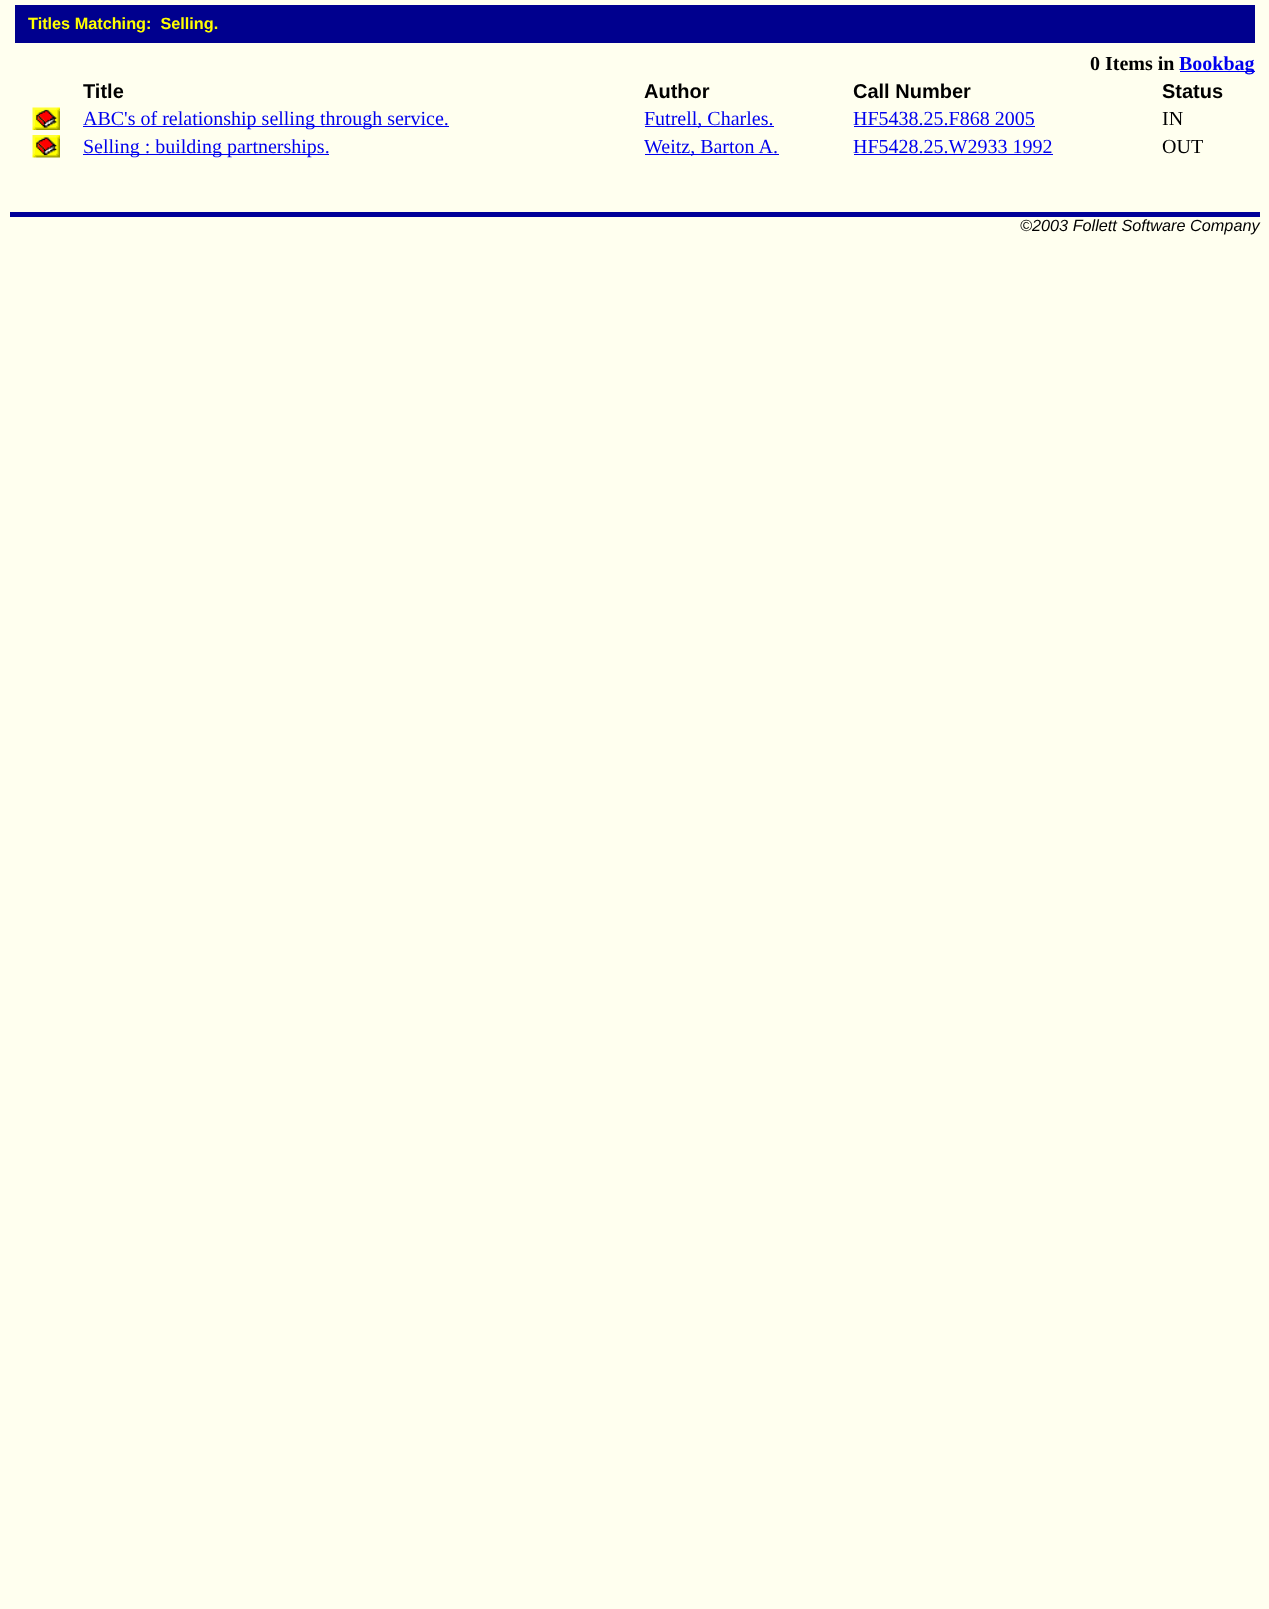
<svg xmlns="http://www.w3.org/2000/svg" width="1269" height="1609">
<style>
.a{font:bold 16.25px Liberation Sans;fill:#ff0}
.b{font:bold 20px Liberation Serif;fill:#000}
.c{font:bold 20px Liberation Serif;fill:#00e}
.d{font:bold 20px Liberation Sans;fill:#000}
.e{font:20px Liberation Serif;fill:#00e}
.f{font:20px Liberation Serif;fill:#000}
.g{font:italic 16.25px Liberation Sans;fill:#000}
</style>
<rect width="100%" height="100%" fill="#ffffef"/>
<path fill="#00008e" d="M15 5h1240v38H15z"/>
<path fill="#00e" d="M1180 71h75v1H1180z"/>
<image href="1.png" x="32" y="107" width="28" height="23"/>
<path fill="#00e" d="M83 126h366v1H83z"/>
<path fill="#00e" d="M645 126h129v1H645z"/>
<path fill="#00e" d="M854 126h181v1H854z"/>
<image href="2.png" x="32" y="135" width="28" height="23"/>
<path fill="#00e" d="M83 154h246v1H83z"/>
<path fill="#00e" d="M645 154h134v1H645z"/>
<path fill="#00e" d="M854 154h199v1H854z"/>
<path fill="#009" d="M10 212h1250v5H10z"/>
<text class="a" xml:space="preserve" x="28" y="29">Titles Matching:  Selling.</text>
<text class="b" x="1090" y="70">0 Items in</text>
<text class="c" x="1179" y="70">Bookbag</text>
<text class="d" x="83" y="98">Title</text>
<text class="d" x="644" y="98">Author</text>
<text class="d" x="853" y="98">Call Number</text>
<text class="d" x="1162" y="98">Status</text>
<text class="e" x="83" y="125">ABC's of relationship selling through service.</text>
<text class="e" x="644" y="125">Futrell, Charles.</text>
<text class="e" x="853" y="125">HF5438.25.F868 2005</text>
<text class="f" x="1162" y="125">IN</text>
<text class="e" x="83" y="153">Selling : building partnerships.</text>
<text class="e" x="644" y="153">Weitz, Barton A.</text>
<text class="e" x="853" y="153">HF5428.25.W2933 1992</text>
<text class="f" x="1162" y="153">OUT</text>
<text class="g" x="1020" y="231">©2003 Follett Software Company</text>
</svg>
